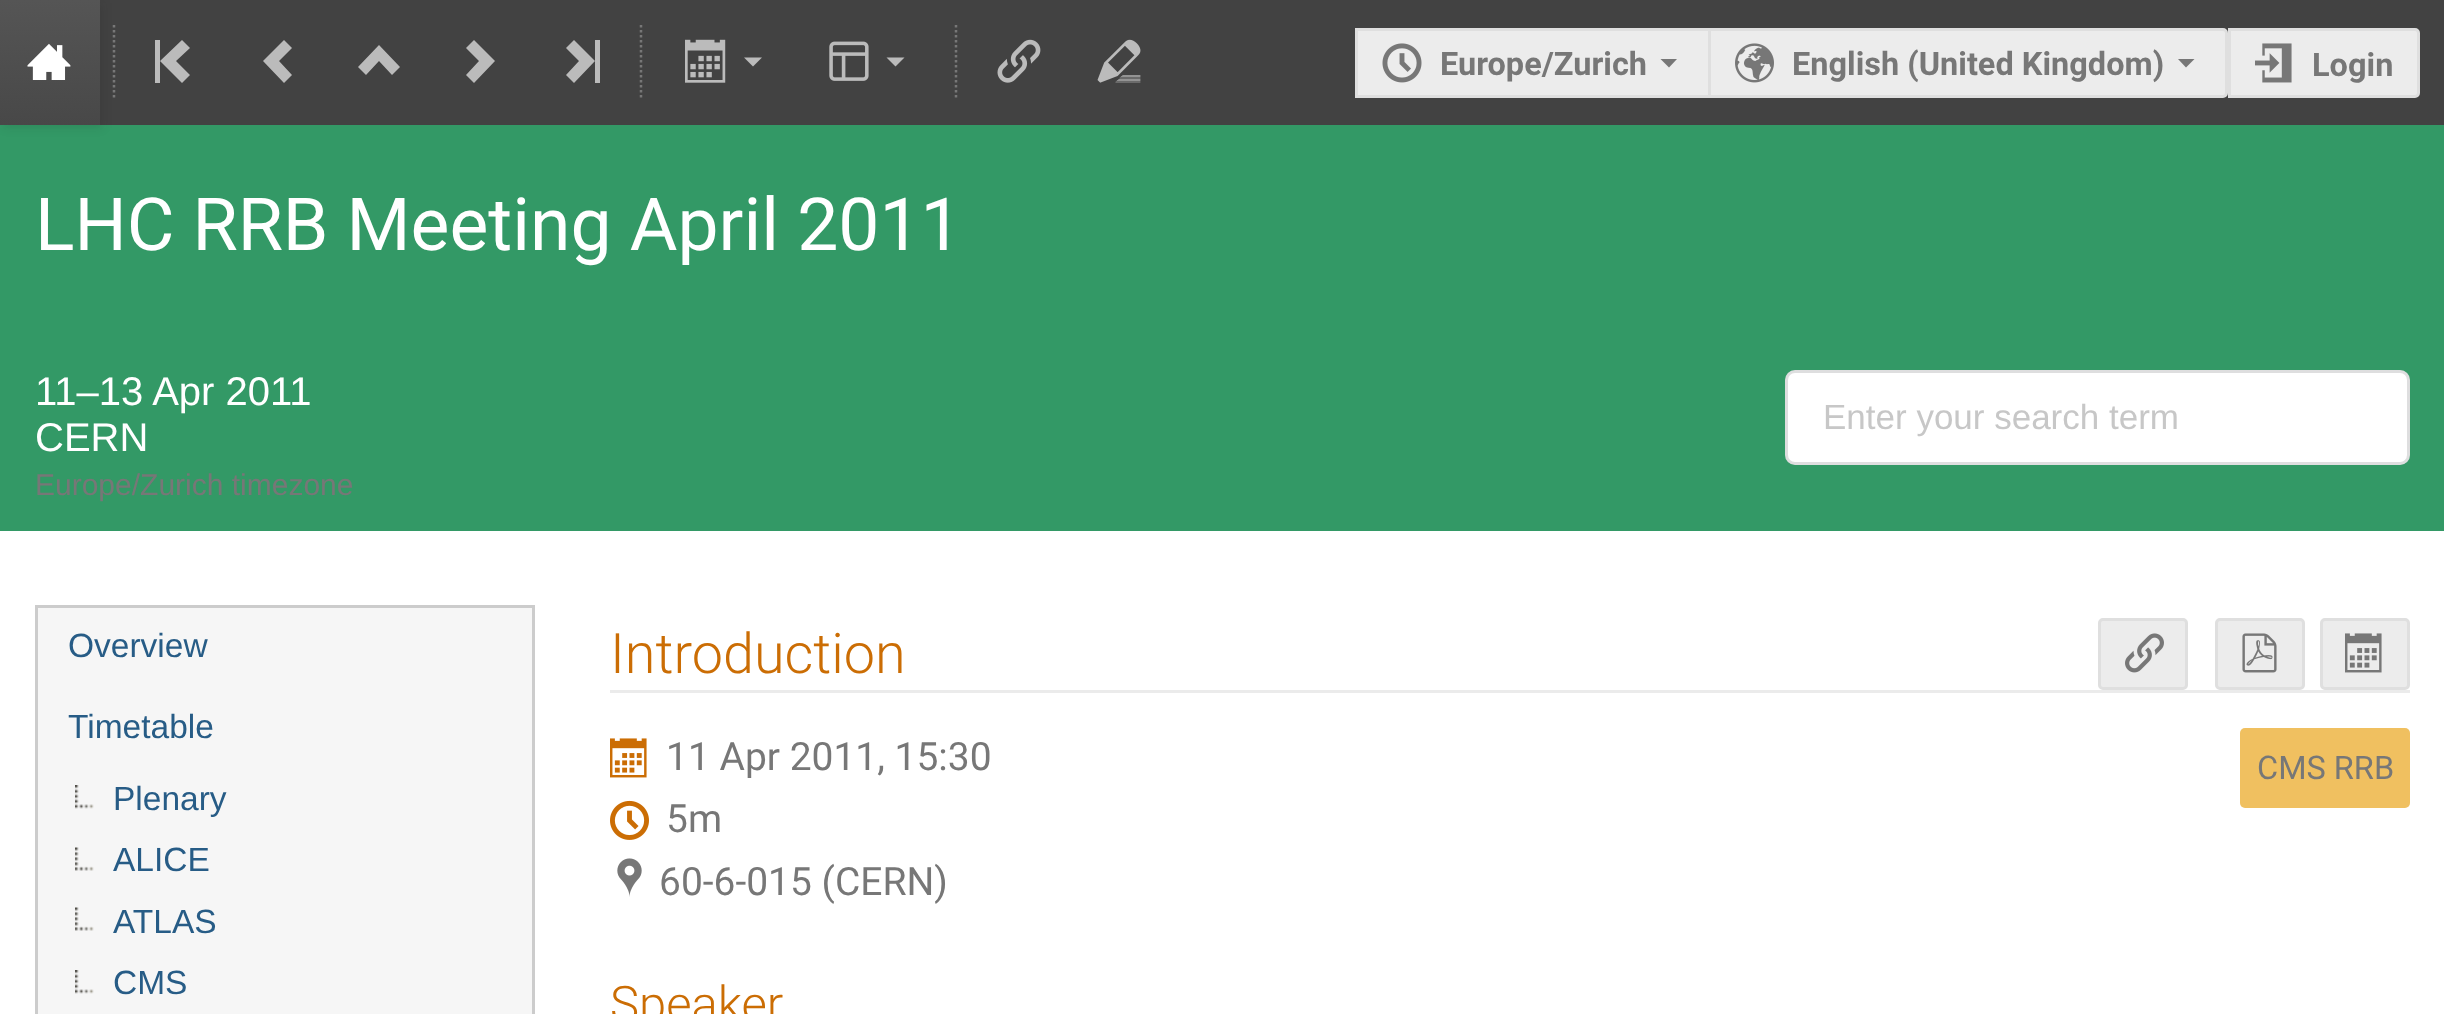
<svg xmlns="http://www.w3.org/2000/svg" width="2444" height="1014">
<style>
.a{font:bold 32.5px Roboto;fill:#777}
.b{font:73.3px Roboto;fill:#fff}
.c{font:40px Liberation Sans;fill:#fff}
.d{font:30px Liberation Sans;fill:#777}
.e{font:35px 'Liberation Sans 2';fill:#c7c7c7}
.f{font:33.5px 'Liberation Sans 2';fill:#275c86}
.g{font:300 55.75px Roboto;fill:#cb6d04}
.h{font:39px Roboto;fill:#777}
.i{font:32.5px Roboto;fill:#777}
.j{font:300 49px Roboto;fill:#cb6d04}
</style>
<defs>
<linearGradient id="g1" gradientUnits="userSpaceOnUse" x1="50" y1="0" x2="50" y2="125"><stop offset="0" stop-color="#555"/><stop offset="1" stop-color="#484848"/></linearGradient>
</defs>
<rect width="100%" height="100%" fill="#fff"/>
<path fill="#424242" d="M100 0h2344v125H100z"/>
<path fill="#396" d="M0 125h2444v406H0z"/>
<path fill="#1414141a" filter="blur(5px)" d="M3 3h100v125H3z"/>
<path fill="url(#g1)" d="M0 0h100v125H0z"/>
<image href="1.png" x="27" y="43" width="44" height="37"/>
<path fill="none" stroke="#777" stroke-width="2.5" stroke-dasharray="2.5 2.5" d="M114 25v75"/>
<path fill="#bbb" d="M190 48l-8-8l-22 21l22 22l8-8l-14-14zm-35-8v43h5v-43z"/>
<path fill="#bbb" d="M284 83l8-8l-13-14l13-13l-8-8l-21 21z"/>
<path fill="#bbb" d="M358 67l8 8l13-14l13 14l8-8l-21-22z"/>
<path fill="#bbb" d="M474 40l-8 8l13 13l-13 14l8 8l21-22z"/>
<path fill="#bbb" d="M566 75l8 8l21-22l-21-21l-8 8l13 13zm34 8v-43h-5v43z"/>
<path fill="none" stroke="#777" stroke-width="2.5" stroke-dasharray="2.5 2.5" d="M641 25v75"/>
<image href="2.png" x="685" y="39" width="41" height="44"/>
<path fill="#bbb" d="M744 57.5l9 9l9-9z"/>
<image href="3.png" x="829" y="41" width="40" height="40"/>
<path fill="#bbb" d="M886.5 57.5l9 9l9-9z"/>
<path fill="none" stroke="#777" stroke-width="2.5" stroke-dasharray="2.5 2.5" d="M956 25v75"/>
<image href="4.png" x="997" y="39" width="44" height="44"/>
<image href="5.png" x="1097" y="39" width="44" height="44"/>
<path fill="#ececec" d="M1358 31h350v64H1358z"/>
<path fill="#dfdfdf" d="M1355 28h353v3H1355z"/>
<path fill="#dfdfdf" d="M1355 95h353v3H1355z"/>
<path fill="#dfdfdf" d="M1355 28h3v70H1355z"/>
<image href="6.png" x="1382" y="43" width="40" height="40"/>
<path fill="#777" d="M1660.5 59l8.5 8.5l8-8.5z"/>
<path fill="#ececec" stroke="#dfdfdf" stroke-width="3" d="M1709.5 29.5h513.5c2 0 3.5 1.5 3.5 3.5v60c0 2-1.5 3.5-3.5 3.5h-513.5z"/>
<image href="7.png" x="1735" y="43" width="39" height="40"/>
<path fill="#777" d="M2178 59l8 8.5l8.5-8.5z"/>
<path fill="#ececec" stroke="#dfdfdf" stroke-width="3" d="M2229.5 29.5h185.5c2 0 3.5 1.5 3.5 3.5v60c0 2-1.5 3.5-3.5 3.5h-185.5z"/>
<image href="8.png" x="2255" y="43" width="37" height="40"/>
<rect fill="#fff" x="1785" y="370" width="625" height="95" rx="10"/>
<rect fill="none" stroke="#22242626" stroke-width="3" x="1786.5" y="371.5" width="622" height="92" rx="8.5"/>
<path fill="#f6f6f6" stroke="#ccc" stroke-width="3" d="M36.5 606.5h497v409H36.5z"/>
<image href="9.png" x="75" y="785" width="19" height="24"/>
<image href="10.png" x="75" y="847" width="19" height="24"/>
<image href="10.png" x="75" y="907" width="19" height="24"/>
<image href="9.png" x="75" y="970" width="19" height="24"/>
<path fill="#ebebeb" d="M610 690h1800v3H610z"/>
<rect fill="#ececec" stroke="#dfdfdf" stroke-width="3" x="2099.5" y="619.5" width="87" height="69" rx="3.5"/>
<image href="11.png" x="2125" y="633" width="39" height="40"/>
<rect fill="#ececec" stroke="#dfdfdf" stroke-width="3" x="2216.5" y="619.5" width="87" height="69" rx="3.5"/>
<image href="12.png" x="2242" y="633" width="35" height="40"/>
<rect fill="#ececec" stroke="#dfdfdf" stroke-width="3" x="2321.5" y="619.5" width="87" height="69" rx="3.5"/>
<image href="13.png" x="2345" y="633" width="37" height="40"/>
<image href="14.png" x="610" y="738" width="37" height="40"/>
<image href="15.png" x="610" y="800" width="39" height="40"/>
<image href="16.png" x="617" y="858" width="25" height="39"/>
<rect fill="#f0c060" x="2240" y="728" width="170" height="80" rx="5"/>
<text class="a" x="1440" y="75">Europe/Zurich</text>
<text class="a" x="1792" y="75">English (United Kingdom)</text>
<text class="a" x="2312" y="76">Login</text>
<text class="b" x="35" y="250">LHC RRB Meeting April 2011</text>
<text class="c" x="35" y="405">11–13 Apr 2011</text>
<text class="c" x="35" y="451">CERN</text>
<text class="d" x="35" y="495">Europe/Zurich timezone</text>
<text class="e" x="1823" y="429">Enter your search term</text>
<text class="f" x="68" y="657">Overview</text>
<text class="f" x="68" y="738">Timetable</text>
<text class="f" x="113" y="810">Plenary</text>
<text class="f" x="113" y="871">ALICE</text>
<text class="f" x="113" y="933">ATLAS</text>
<text class="f" x="113" y="994">CMS</text>
<text class="g" x="610" y="673">Introduction</text>
<text class="h" x="666" y="770">11 Apr 2011, 15:30</text>
<text class="h" x="666" y="832">5m</text>
<text class="h" x="659" y="895">60-6-015 (CERN)</text>
<text class="i" x="2257" y="779">CMS RRB</text>
<text class="j" x="610" y="1021">Speaker</text>
</svg>
